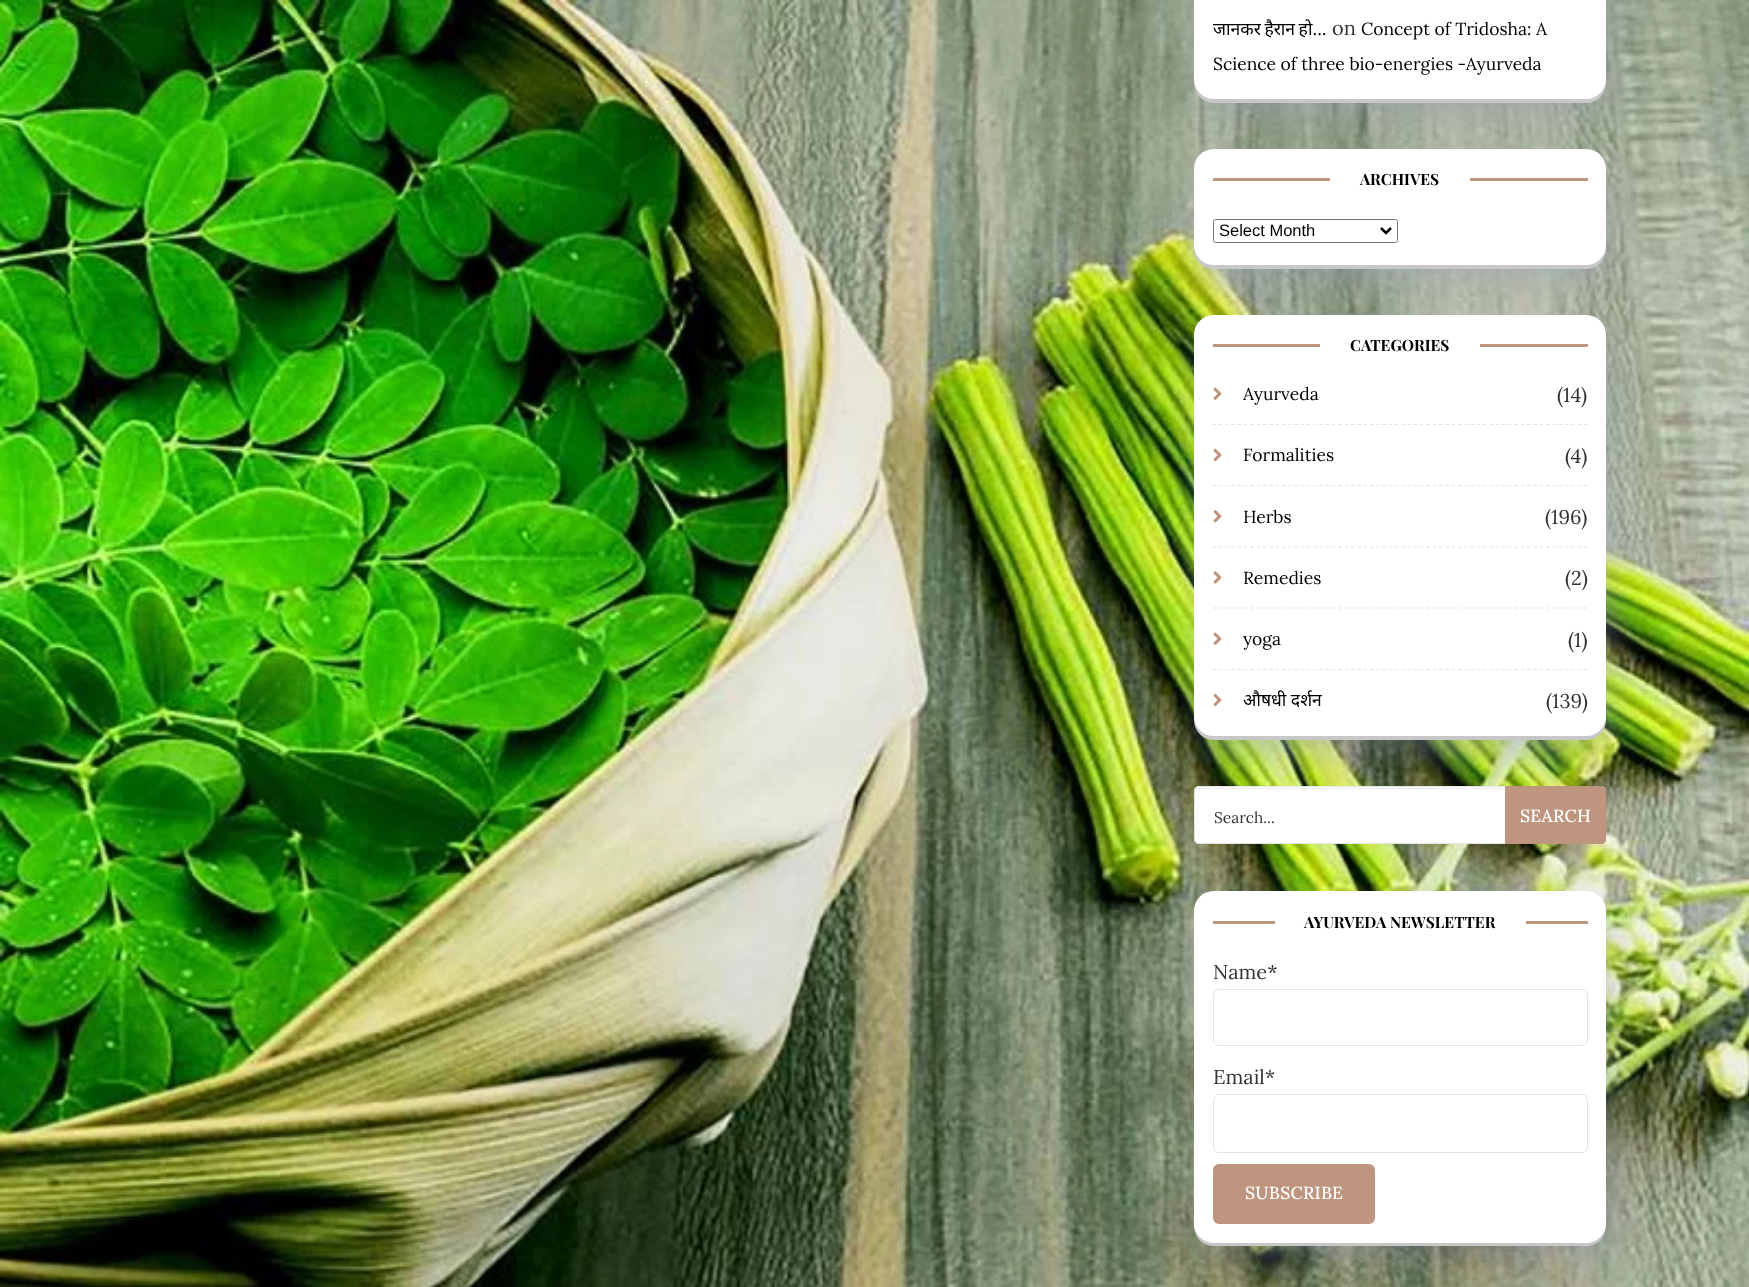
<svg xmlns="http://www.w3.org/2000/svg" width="1749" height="1287">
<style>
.a{font:17.5px Noto Sans;fill:#000}
.b{font:20px Lora;fill:#333}
.c{font:17.5px Lora;fill:#000}
.d{font:bold 15.5px Playfair Display;fill:#000}
.e{font:16.5px Liberation Sans;fill:#000}
.f{font:15.5px Lora;fill:#333}
.g{font:500 17.5px Lora;letter-spacing:0.25px;fill:#fff}
</style>
<rect width="100%" height="100%" fill="#fff"/>
<image href="1.png" x="0" y="0" width="1749" height="1287"/>
<rect fill="#9ca0b98f" filter="blur(19px)" x="1206" y="-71" width="400" height="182" rx="14"/>
<rect fill="#c7c7c7" filter="blur(0.5px)" x="1194" y="-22" width="412" height="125" rx="20"/>
<rect fill="#fff" x="1194" y="-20" width="412" height="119" rx="20"/>
<rect fill="#9ca0b98f" filter="blur(19px)" x="1206" y="174" width="400" height="104" rx="14"/>
<rect fill="#c7c7c7" filter="blur(0.5px)" x="1194" y="153" width="412" height="116" rx="20"/>
<rect fill="#fff" x="1194" y="149" width="412" height="116" rx="20"/>
<path fill="#be967f" d="M1213 178h117v3H1213z"/>
<path fill="#be967f" d="M1470 178h118v3H1470z"/>
<rect fill="none" stroke="#767676" x="1213.5" y="219.5" width="184" height="23" rx="2"/>
<path fill="none" stroke="#000" stroke-width="2.5" d="M1381 228l5 5l5-5"/>
<rect fill="#9ca0b98f" filter="blur(19px)" x="1206" y="340" width="400" height="409" rx="14"/>
<rect fill="#c7c7c7" filter="blur(0.5px)" x="1194" y="319" width="412" height="421" rx="20"/>
<rect fill="#fff" x="1194" y="315" width="412" height="421" rx="20"/>
<path fill="#be967f" d="M1213 344h107v3H1213z"/>
<path fill="#be967f" d="M1480 344h108v3H1480z"/>
<path fill="none" stroke="#e4e4e4" stroke-width="1.2" stroke-dasharray="3.75 2.54" d="M1212.5 424.5h375"/>
<image href="2.png" x="1213" y="387" width="9" height="13"/>
<path fill="none" stroke="#e4e4e4" stroke-width="1.2" stroke-dasharray="3.75 2.54" d="M1212.5 485.5h375"/>
<image href="3.png" x="1213" y="448" width="9" height="14"/>
<path fill="none" stroke="#e4e4e4" stroke-width="1.2" stroke-dasharray="3.75 2.54" d="M1212.5 547h375"/>
<image href="4.png" x="1213" y="510" width="9" height="13"/>
<path fill="none" stroke="#e4e4e4" stroke-width="1.2" stroke-dasharray="3.75 2.54" d="M1212.5 608h375"/>
<image href="5.png" x="1213" y="571" width="9" height="13"/>
<path fill="none" stroke="#e4e4e4" stroke-width="1.2" stroke-dasharray="3.75 2.54" d="M1212.5 669.5h375"/>
<image href="2.png" x="1213" y="632" width="9" height="13"/>
<image href="3.png" x="1213" y="693" width="9" height="14"/>
<rect fill="#fff" x="1194" y="786" width="412" height="58" rx="5"/>
<path fill="#ececec" d="M1199 789h402c2 0 4 1 4 3c0-2-2-4-4-4h-402c-2 0-4 2-4 4c0-2 2-3 4-3z"/>
<rect fill="none" stroke="#e4e4e4" x="1194.5" y="786.5" width="411" height="57" rx="4.5"/>
<path fill="#be967f" d="M1505 786h96c3 0 5 2 5 5v48c0 3-2 5-5 5h-96z"/>
<rect fill="#9ca0b98f" filter="blur(19px)" x="1206" y="916" width="400" height="339" rx="14"/>
<rect fill="#c7c7c7" filter="blur(0.5px)" x="1194" y="895" width="412" height="351" rx="20"/>
<rect fill="#fff" x="1194" y="891" width="412" height="352" rx="20"/>
<path fill="#be967f" d="M1213 921h62v3H1213z"/>
<path fill="#be967f" d="M1526 921h62v3H1526z"/>
<rect fill="none" stroke="#e4e4e4" x="1213.5" y="989.5" width="374" height="56" rx="5.5"/>
<rect fill="none" stroke="#e4e4e4" x="1213.5" y="1094.5" width="374" height="58" rx="5.5"/>
<rect fill="#be967f" stroke="#be967f" stroke-width="3" x="1214.5" y="1165.5" width="159" height="57" rx="4.5"/>
<text class="a" x="1213" y="35" word-spacing="-1">जानकर हैरान हो...</text>
<text class="b" x="1332" y="35">on</text>
<text class="c" x="1361" y="35">Concept of Tridosha: A</text>
<text class="c" x="1213" y="70">Science of three bio-energies -Ayurveda</text>
<text class="d" x="1360" y="185">ARCHIVES</text>
<text class="e" x="1219" y="236">Select Month</text>
<text class="d" x="1350" y="351">CATEGORIES</text>
<text class="c" x="1243" y="400">Ayurveda</text>
<text class="b" x="1557" y="402">(14)</text>
<text class="c" x="1243" y="461">Formalities</text>
<text class="b" x="1565" y="463">(4)</text>
<text class="c" x="1243" y="523">Herbs</text>
<text class="b" x="1545" y="524">(196)</text>
<text class="c" x="1243" y="584">Remedies</text>
<text class="b" x="1565" y="585">(2)</text>
<text class="c" x="1243" y="645">yoga</text>
<text class="b" x="1568" y="647">(1)</text>
<text class="a" x="1243" y="706">औषधी दर्शन</text>
<text class="b" x="1546" y="708">(139)</text>
<text class="f" x="1214" y="823">Search...</text>
<text class="g" x="1520" y="822">SEARCH</text>
<text class="d" x="1304" y="928">AYURVEDA NEWSLETTER</text>
<text class="b" x="1213" y="979">Name*</text>
<text class="b" x="1213" y="1084">Email*</text>
<text class="g" x="1245" y="1199">SUBSCRIBE</text>
</svg>
